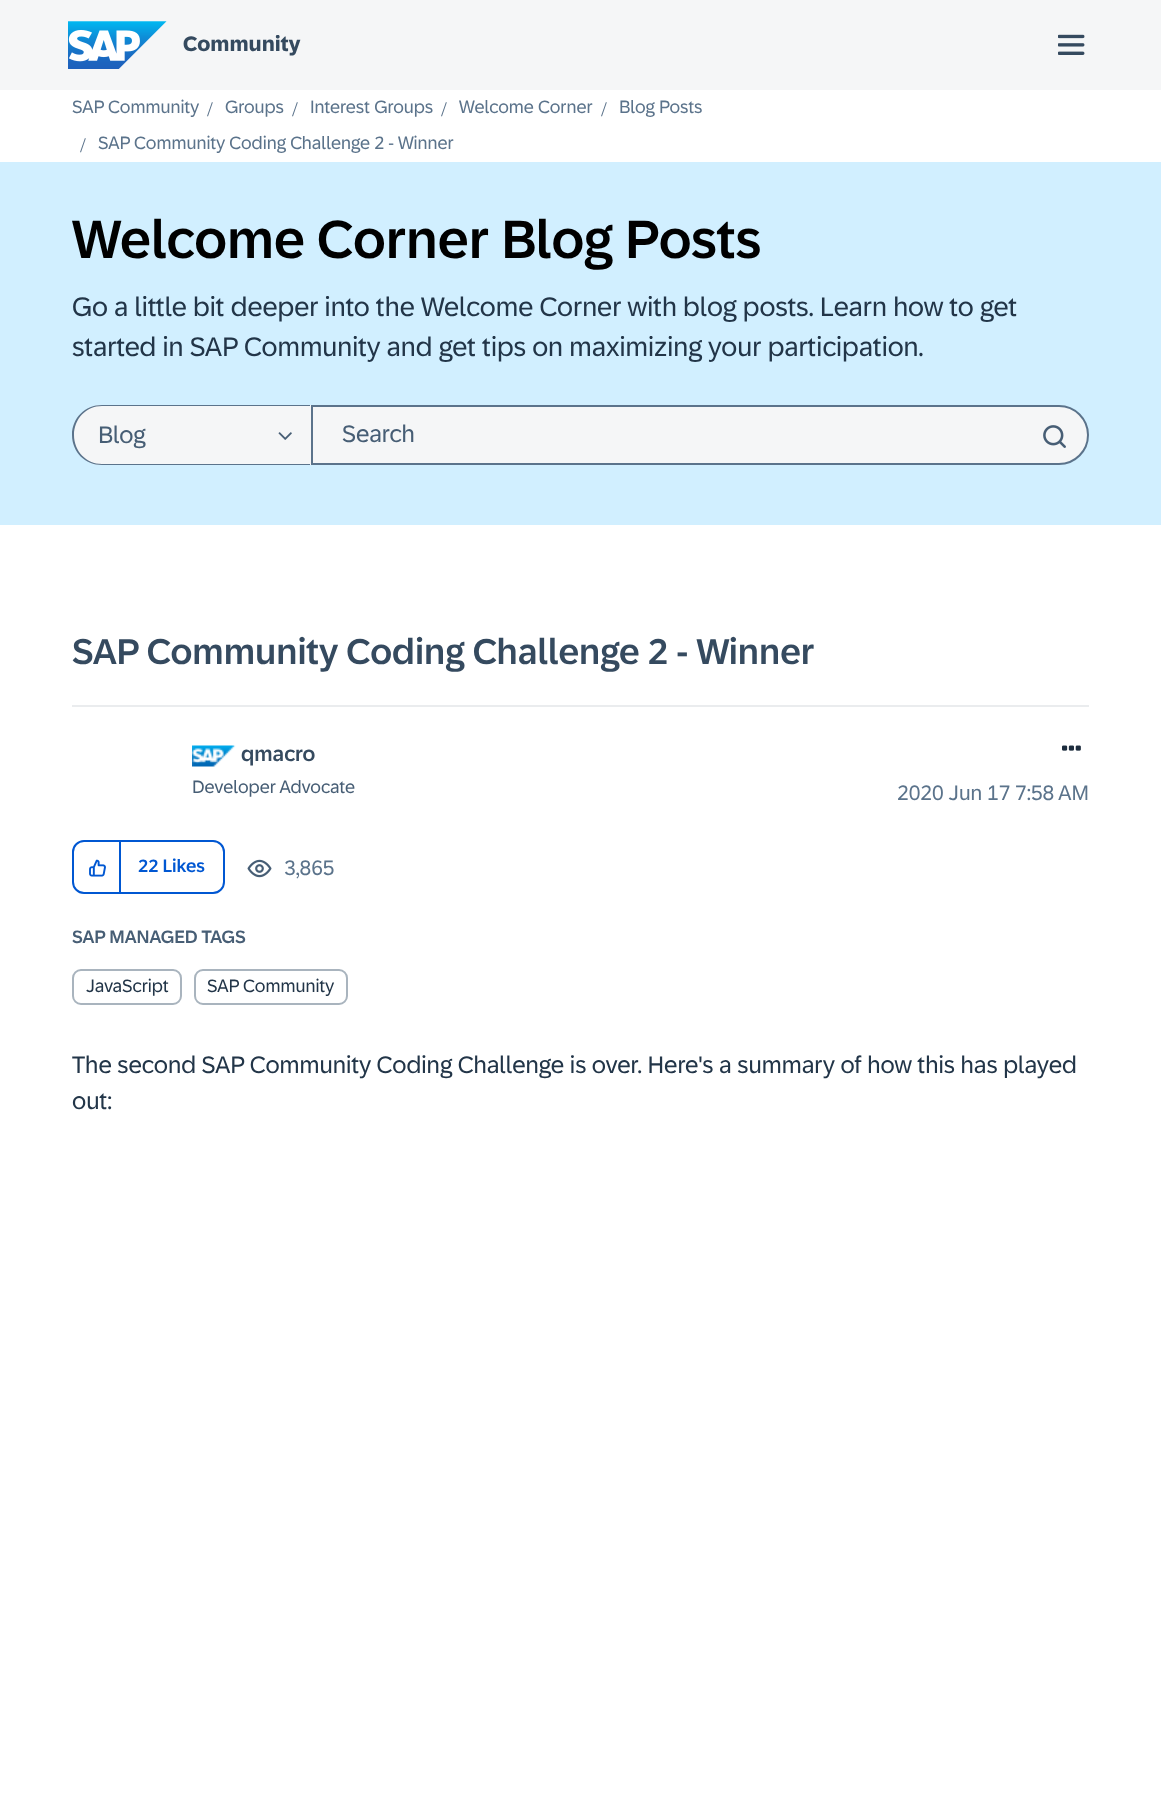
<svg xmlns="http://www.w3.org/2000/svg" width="1161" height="1795">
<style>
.a{font:bold 21px '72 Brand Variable';fill:#354a5f}
.b{font:18px '72 Brand Variable';fill:#5b738b}
.c{font:21px Liberation Serif;fill:#5b738b}
.d{font:500 54px '72 Brand Variable';fill:#000}
.e{font:27px '72 Brand Variable';fill:#223548}
.f{font:24px '72 Brand Variable';fill:#475e75}
.g{font:500 36px '72 Brand Variable';fill:#354a5f}
.h{font:500 21px '72 Brand Variable';fill:#354a5f}
.i{font:18px '72 Brand Variable';fill:#475e75}
.j{font:21px '72 Brand Variable';fill:#5b738b}
.k{font:500 18px '72 Brand Variable';fill:#0057d2}
.l{font:500 18px '72 Brand Variable';fill:#475e75}
.m{font:18px '72 Brand Variable';fill:#223548}
.n{font:24px '72 Brand Variable';fill:#223548}
</style>
<rect width="100%" height="100%" fill="#fff"/>
<path fill="#f5f6f7" d="M0 0h1161v90H0z"/>
<image href="1.png" x="68" y="21" width="99" height="48"/>
<image href="2.png" x="1058" y="34" width="27" height="21"/>
<path fill="#d1efff" d="M0 162h1161v363H0z"/>
<path fill="#f5f6f7" d="M102 405h209v60h-209c-16.5 0-30-13.5-30-30c0-16.5 13.5-30 30-30z"/>
<path fill="#5b738b" fill-rule="evenodd" d="M102 405h208v60h-208c-17 0-30-13-30-30c0-17 13-30 30-30zm0 1h208v58h-208c-16 0-28-13-28-29c0-16 12-29 28-29z"/>
<image href="3.png" x="278" y="432" width="14" height="8"/>
<path fill="#f5f6f7" stroke="#5b738b" stroke-width="2" d="M312 406h747c16 0 29 13 29 29c0 16-13 29-29 29h-747z"/>
<image href="4.png" x="1043" y="425" width="23" height="23"/>
<path fill="#eaecee" d="M72 705h1017v2H72z"/>
<image href="5.png" x="192" y="745" width="44" height="22"/>
<image href="6.png" x="1062" y="745" width="19" height="6"/>
<rect fill="none" stroke="#0057d2" stroke-width="2" x="73" y="841" width="151" height="52" rx="11"/>
<path fill="#0057d2" d="M119 842h2v52H119z"/>
<image href="7.png" x="89" y="859" width="17" height="18"/>
<image href="8.png" x="247" y="859" width="25" height="19"/>
<rect fill="none" stroke="#a9b4be" stroke-width="2" x="73" y="970" width="108" height="34" rx="8"/>
<rect fill="none" stroke="#a9b4be" stroke-width="2" x="195" y="970" width="152" height="34" rx="8"/>
<text class="a" x="183" y="51">Community</text>
<text class="b" x="72" y="113">SAP Community</text>
<text class="c" x="207" y="116">/</text>
<text class="b" x="225" y="113">Groups</text>
<text class="c" x="292" y="116">/</text>
<text class="b" x="310" y="113">Interest Groups</text>
<text class="c" x="441" y="116">/</text>
<text class="b" x="459" y="113">Welcome Corner</text>
<text class="c" x="601" y="116">/</text>
<text class="b" x="619" y="113">Blog Posts</text>
<text class="c" x="80" y="152">/</text>
<text class="b" x="98" y="149">SAP Community Coding Challenge 2 - Winner</text>
<text class="d" x="72" y="258">Welcome Corner Blog Posts</text>
<text class="e" x="72" y="316">Go a little bit deeper into the Welcome Corner with blog posts. Learn how to get</text>
<text class="e" x="72" y="356">started in SAP Community and get tips on maximizing your participation.</text>
<text class="f" x="98" y="443">Blog</text>
<text class="f" x="342" y="442">Search</text>
<text class="g" x="72" y="664">SAP Community Coding Challenge 2 - Winner</text>
<text class="h" x="241" y="761">qmacro</text>
<text class="i" x="192" y="793">Developer Advocate</text>
<text class="j" x="897" y="800">2020 Jun 17</text>
<text class="j" x="1015" y="800">7:58 AM</text>
<text class="k" x="138" y="872">22 Likes</text>
<text class="j" x="284" y="875">3,865</text>
<text class="l" x="72" y="943">SAP MANAGED TAGS</text>
<text class="m" x="86" y="992">JavaScript</text>
<text class="m" x="207" y="992">SAP Community</text>
<text class="n" x="72" y="1073">The second SAP Community Coding Challenge is over. Here's a summary of how this has played</text>
<text class="n" x="72" y="1109">out:</text>
</svg>
